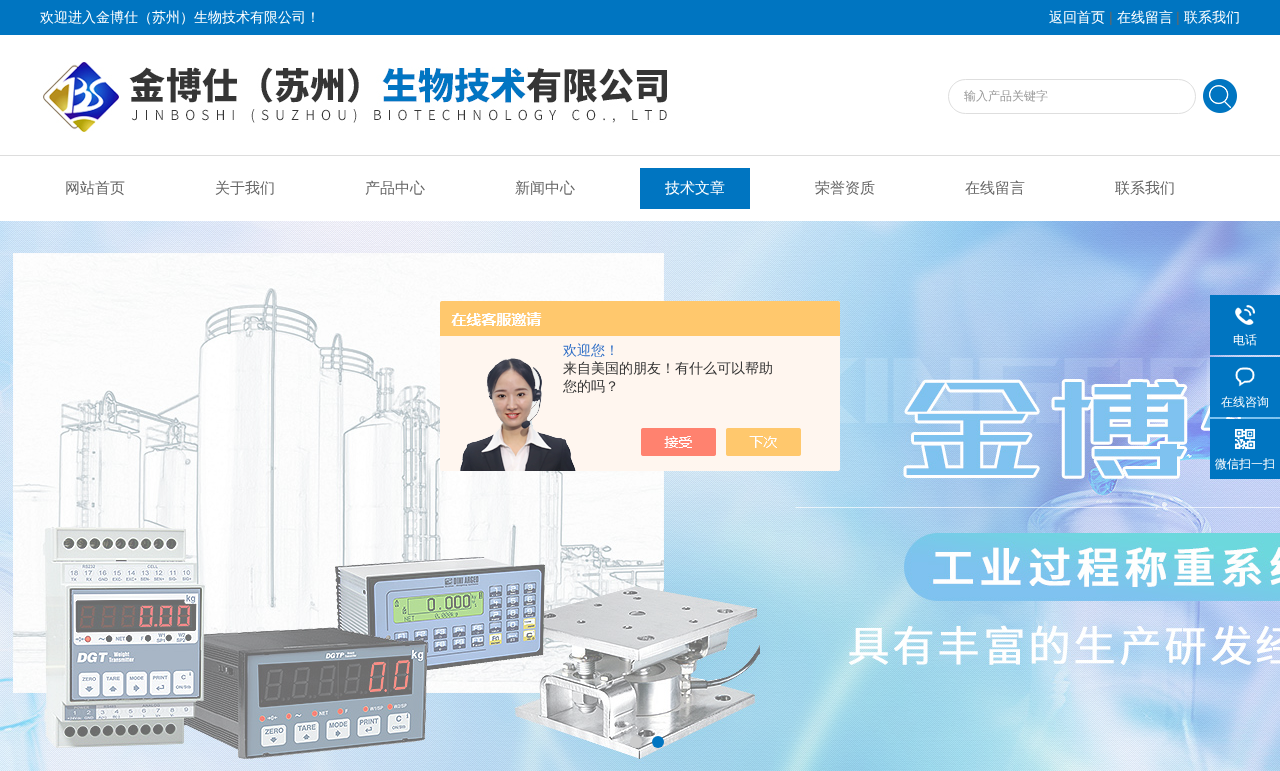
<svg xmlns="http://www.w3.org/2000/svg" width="1280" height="771">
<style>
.a{font:500 14px WenQuanYi Zen Hei;fill:#fff}
.b{font:14px Liberation Sans;fill:#666}
.c{font:500 12px WenQuanYi Zen Hei;fill:#999}
.d{font:500 15px WenQuanYi Zen Hei;fill:#666}
.e{font:500 15px WenQuanYi Zen Hei;fill:#fff}
.f{font:500 14px WenQuanYi Zen Hei;fill:#2e6ec6}
.g{font:500 14px WenQuanYi Zen Hei;fill:#333}
.h{font:500 12px WenQuanYi Zen Hei;fill:#fff}
</style>
<rect width="100%" height="100%" fill="#fff"/>
<path fill="#0075c1" d="M0 0h1280v35H0z"/>
<image href="1.png" x="43" y="62" width="624" height="70"/>
<rect fill="none" stroke="#dedede" x="948.5" y="79.5" width="247" height="34" rx="17"/>
<image href="2.png" x="1203" y="79" width="34" height="34"/>
<path fill="#ddd" d="M0 155h1280v1H0z"/>
<path fill="#0075c1" d="M640 168h110v41H640z"/>
<image href="3.png" x="0" y="221" width="1280" height="550"/>
<circle fill="#ccc" cx="636" cy="742" r="6"/>
<circle fill="#0075c1" cx="658" cy="742" r="6"/>
<image href="4.png" x="440" y="301" width="400" height="170"/>
<path fill="#0075c1" d="M1210 295h70v60H1210z"/>
<image href="5.png" x="1235" y="305" width="20" height="20"/>
<path fill="#0075c1" d="M1210 357h70v60H1210z"/>
<image href="6.png" x="1235" y="367" width="20" height="20"/>
<path fill="#0075c1" d="M1210 419h70v60H1210z"/>
<image href="7.png" x="1235" y="429" width="20" height="20"/>
<text class="a" x="40" y="22">欢迎进入金博仕（苏州）生物技术有限公司！</text>
<text class="a" x="1049" y="22">返回首页</text>
<text class="b" x="1109" y="22">|</text>
<text class="a" x="1117" y="22">在线留言</text>
<text class="b" x="1176" y="22">|</text>
<text class="a" x="1184" y="22">联系我们</text>
<text class="c" x="964" y="100">输入产品关键字</text>
<text class="d" x="65" y="193">网站首页</text>
<text class="d" x="215" y="193">关于我们</text>
<text class="d" x="365" y="193">产品中心</text>
<text class="d" x="515" y="193">新闻中心</text>
<text class="e" x="665" y="193">技术文章</text>
<text class="d" x="815" y="193">荣誉资质</text>
<text class="d" x="965" y="193">在线留言</text>
<text class="d" x="1115" y="193">联系我们</text>
<text class="f" x="563" y="355">欢迎您！</text>
<text class="g" x="563" y="373">来自美国的朋友！有什么可以帮助</text>
<text class="g" x="563" y="391">您的吗？</text>
<text class="h" x="1233" y="344">电话</text>
<text class="h" x="1221" y="406">在线咨询</text>
<text class="h" x="1215" y="468">微信扫一扫</text>
</svg>
